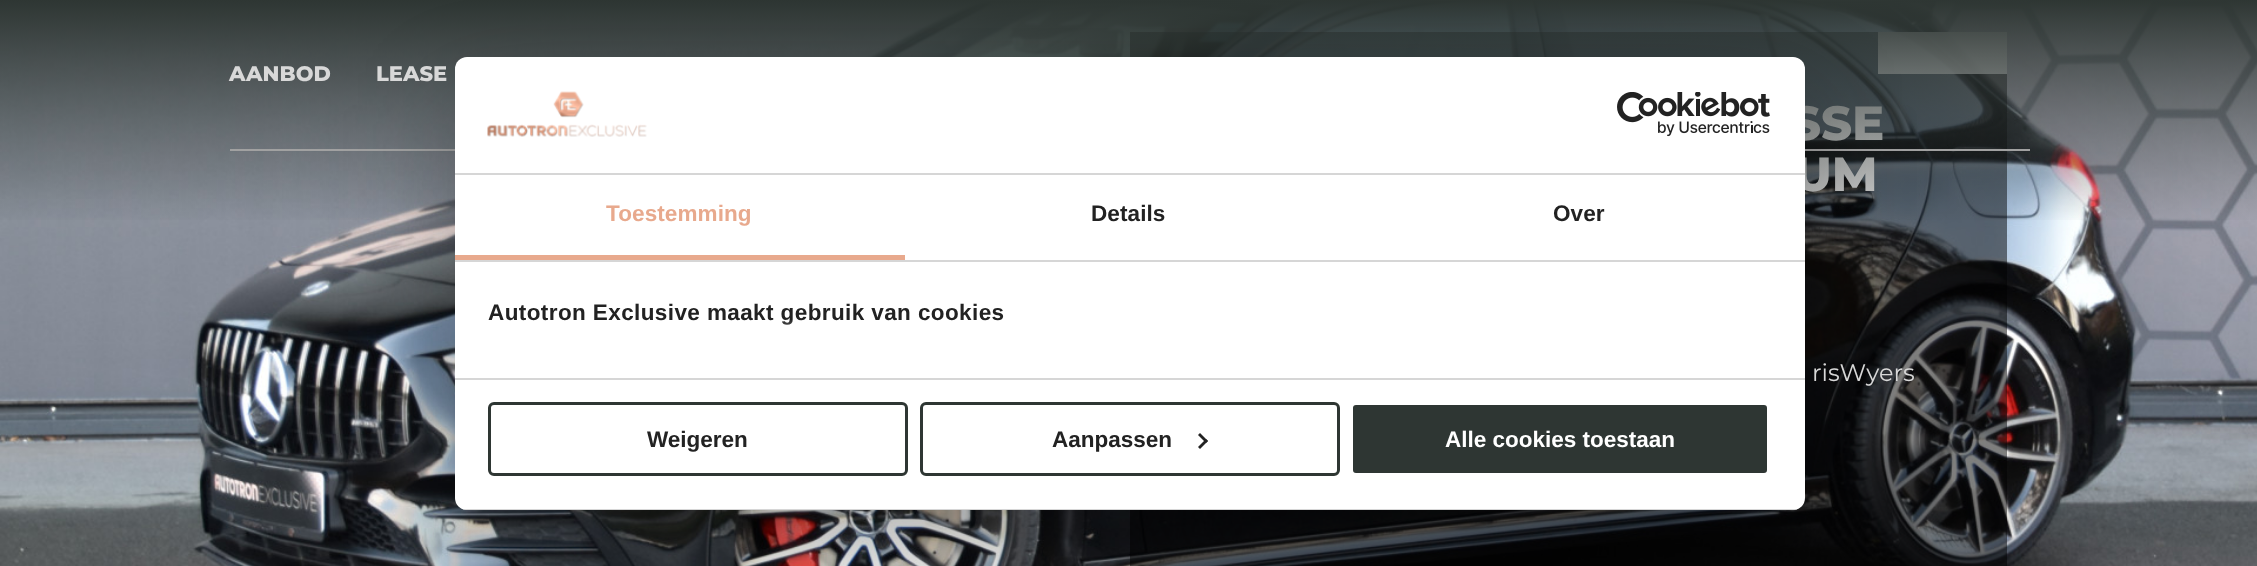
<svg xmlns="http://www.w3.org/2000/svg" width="2257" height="566">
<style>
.a{font:800 48px Montserrat;fill:#d8d8d8}
.b{font:bold 22.5px Liberation Sans;letter-spacing:0.4px;fill:#222}
.c{font:bold 22.5px Liberation Sans;fill:#fff}
.d{font:bold 22.5px Liberation Sans;fill:#222}
.e{font:bold 22.5px Liberation Sans;letter-spacing:0.1px;fill:#222}
.f{font:bold 22.5px Liberation Sans;letter-spacing:0.1px;fill:#e8a98d}
.g{font:800 21px Montserrat;fill:#d8d8d8}
.h{font:24px Montserrat;fill:#d8d8d8}
</style>
<defs>
<linearGradient id="g1" gradientUnits="userSpaceOnUse" x1="1129" y1="0" x2="1129" y2="225"><stop offset="0" stop-color="#2e3633"/><stop offset="1" stop-color="#2e3633" stop-opacity="0"/></linearGradient>
<linearGradient id="g2" gradientUnits="userSpaceOnUse" x1="1114" y1="378" x2="1114" y2="319"><stop offset="0" stop-color="#fff"/><stop offset="0.5" stop-color="#fff" stop-opacity="0.8"/><stop offset="1" stop-color="#fff" stop-opacity="0"/></linearGradient>
<clipPath id="clip1"><rect x="455" y="57" width="1350" height="453" rx="12"/></clipPath>
</defs>
<rect width="100%" height="100%" fill="#fff"/>
<image href="3.png" x="0" y="1" width="2257" height="565"/>
<path fill="#00000080" d="M1130 32h877v534H1130z"/>
<path fill="#ffffffcc" d="M1878 32h129v42H1878z"/>
<text class="a" x="1790" y="140">SSE</text>
<text class="a" x="1794" y="191">UM</text>
<path fill="url(#g1)" d="M0 0h2257v220H0z"/>
<path fill="#a1a1a1" d="M230 149h1800v2H230z"/>
<rect fill="#0000004d" filter="blur(51px)" x="455" y="105" width="1350" height="453" rx="12"/>
<rect fill="#fff" x="455" y="57" width="1350" height="453" rx="12"/>
<text class="b" x="488" y="320">Autotron Exclusive maakt gebruik van cookies</text>
<path fill="url(#g2)" d="M781 320h11v5H781z"/>
<rect fill="none" stroke="#2e3633" stroke-width="3" x="921.5" y="403.5" width="417" height="71" rx="4.5"/>
<path fill="#222" d="M1200 433l8 8l-2 2l-8-8z"/>
<path fill="#222" d="M1206 439l2 2l-8 8l-2-2z"/>
<rect fill="#2e3633" stroke="#fff" stroke-width="3" x="1351.5" y="403.5" width="417" height="71" rx="4.5"/>
<text class="c" x="1445" y="447">Alle cookies toestaan</text>
<text class="d" x="1052" y="447">Aanpassen</text>
<rect fill="none" stroke="#2e3633" stroke-width="3" x="489.5" y="403.5" width="417" height="71" rx="4.5"/>
<text class="d" x="647" y="447">Weigeren</text>
<g clip-path="url(#clip1)">
<path fill="#d6d6d6" d="M455 509h1350v1H455z"/>
</g>
<path fill="#d6d6d6" d="M455 378h1350v2H455z"/>
<text class="e" x="1553" y="221">Over</text>
<text class="e" x="1091" y="221">Details</text>
<text class="f" x="606" y="221">Toestemming</text>
<path fill="#e8a98d" d="M455 255h450v5H455z"/>
<path fill="#d6d6d6" d="M455 260h1350v2H455z"/>
<image href="2.png" x="1617" y="92" width="153" height="45"/>
<image href="1.png" x="487" y="91" width="160" height="46"/>
<path fill="#d6d6d6" d="M455 173h1350v2H455z"/>
<text class="g" x="376" y="81">LEASE</text>
<text class="g" x="229" y="81">AANBOD</text>
<text class="h" x="1812" y="381">risWyers</text>
</svg>
